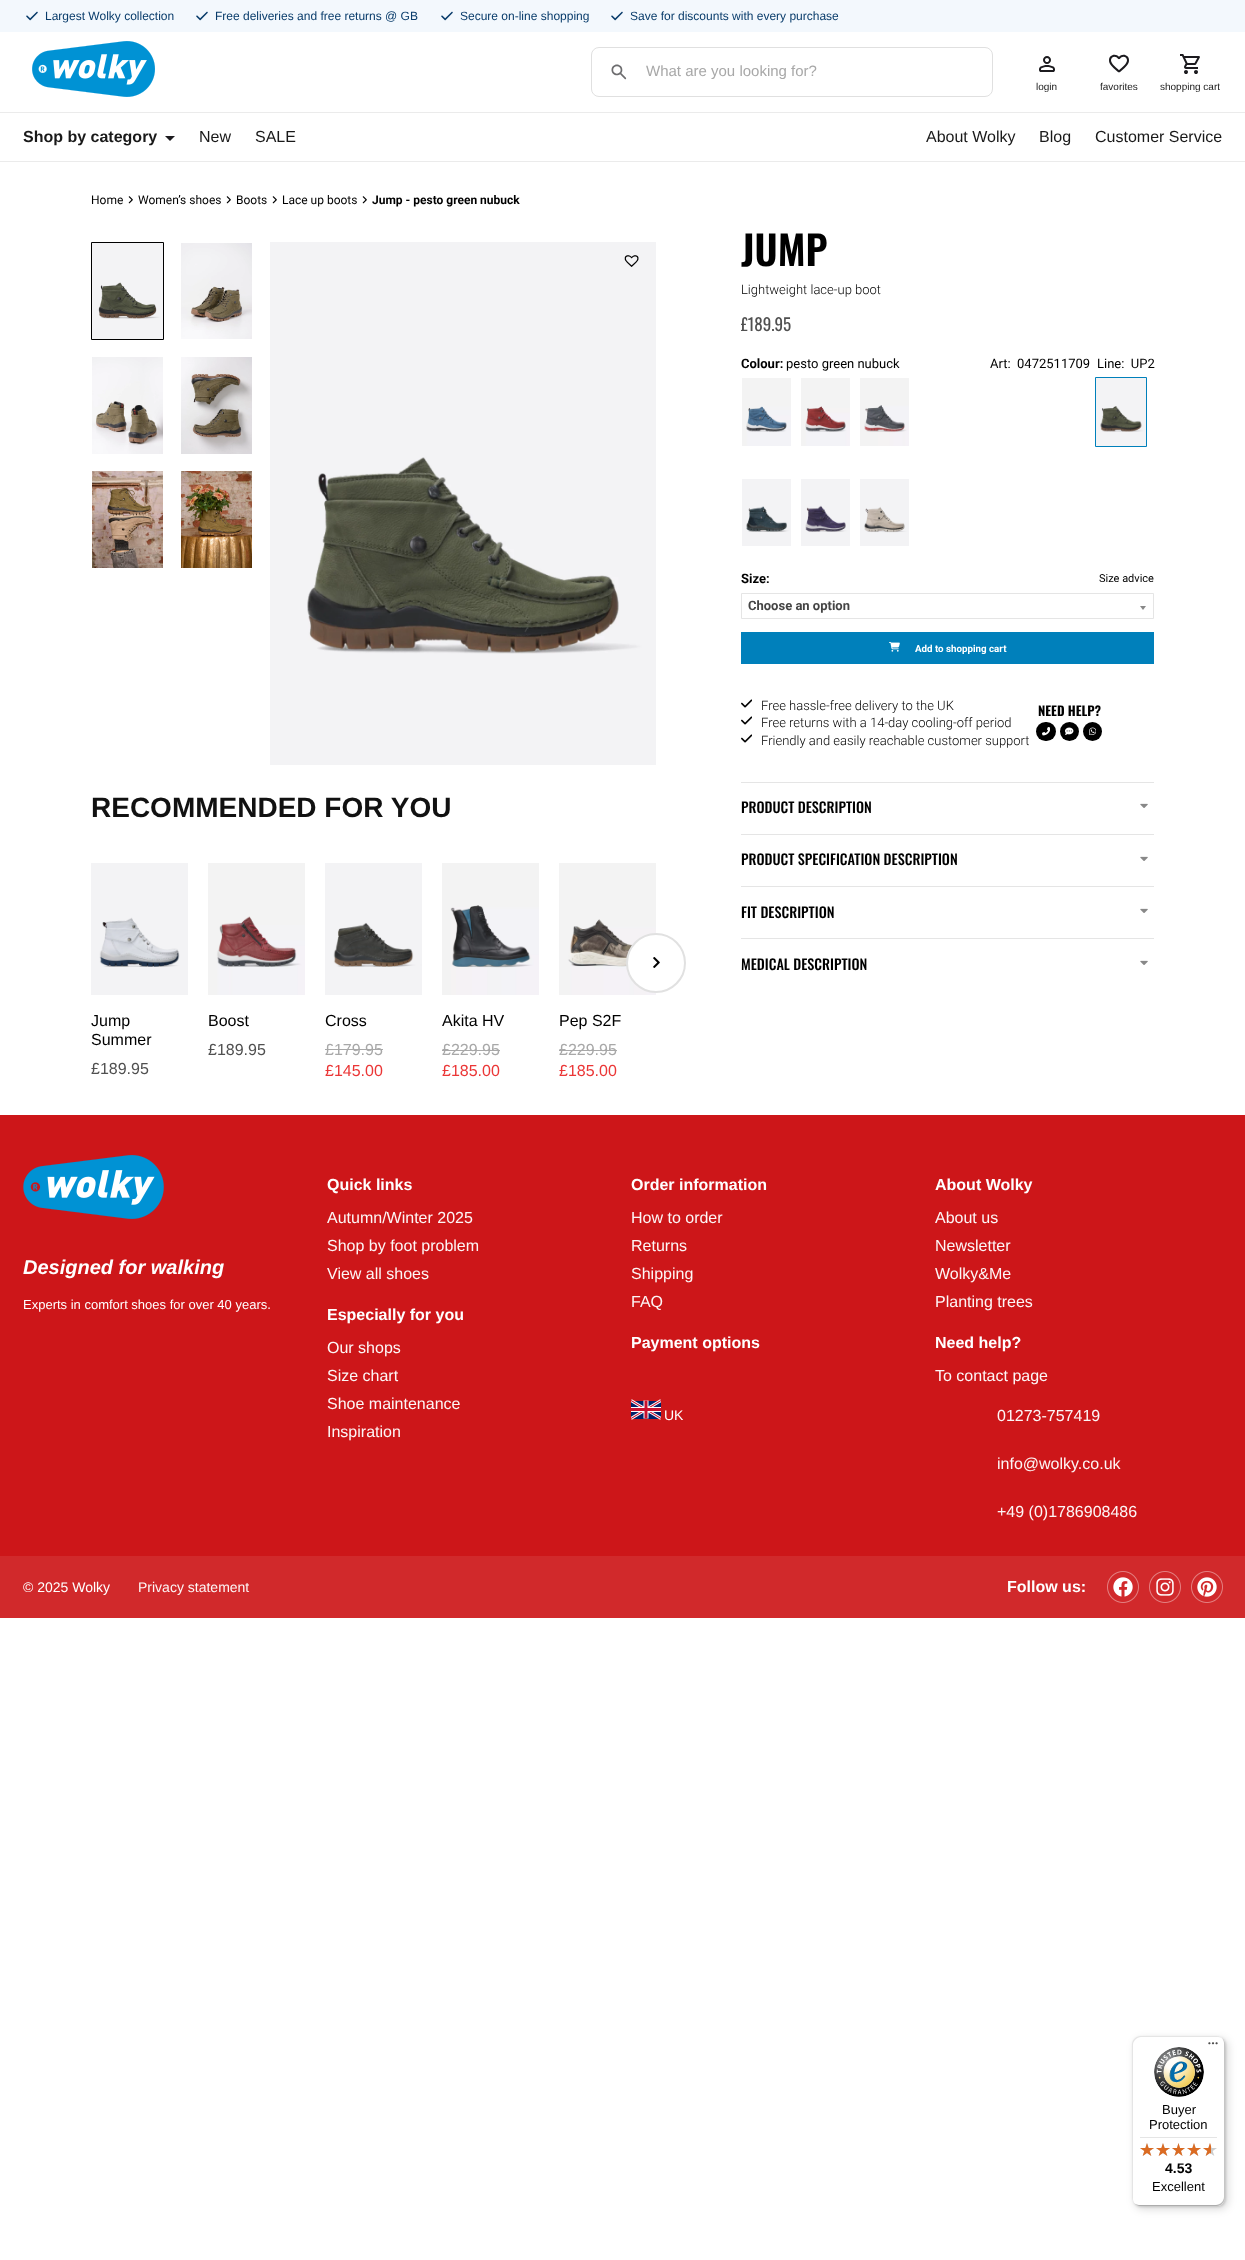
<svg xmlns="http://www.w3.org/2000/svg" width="1245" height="2260">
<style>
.a{font:12px Liberation Sans;fill:#093c6b}
.b{font:15px Liberation Sans;fill:#a8a8a8}
.c{font:10px Liberation Sans;fill:#191919}
.d{font:bold 16px Liberation Sans;fill:#191919}
.e{font:16px Liberation Sans;fill:#191919}
.f{font:12px Roboto;fill:#000}
.g{font:bold 12px Roboto;fill:#000}
.h{font:bold 28px Liberation Sans;fill:#111}
.i{font:16px Liberation Sans;fill:#000}
.j{font:16px Liberation Sans;fill:#505050}
.k{font:16px Liberation Sans;fill:#a8a8a8}
.l{font:16px Liberation Sans;fill:#eb3636}
.m{font:600 40px Oswald;fill:#000}
.n{font:300 13px Roboto;fill:#000}
.o{font:17px Oswald;fill:#505050}
.p{font:bold 13px Roboto;fill:#000}
.q{font:13px Roboto;fill:#000}
.r{font:11px Roboto;fill:#000}
.s{font:bold 13px Roboto;fill:#444}
.t{font:bold 9.75px Roboto;fill:#fff}
.u{font:bold 13px Oswald;fill:#000}
.v{font:500 14.25px Oswald;fill:#000}
.w{font:italic bold 20px Liberation Sans;fill:#fff}
.x{font:13px Liberation Sans;fill:#fff}
.y{font:bold 16px Liberation Sans;fill:#fff}
.z{font:16px Liberation Sans;fill:#fdf6f6}
.a1{font:14px Liberation Sans;fill:#fff}
.b1{font:14px Liberation Sans;fill:#fdf6f6}
.c1{font:13px Liberation Sans;fill:#000}
.d1{font:bold 14px Liberation Sans;fill:#000}
</style>
<defs>
<clipPath id="clip1"><path d="M646 62h252v17H646z"/></clipPath>
</defs>
<rect width="100%" height="100%" fill="#fff"/>
<path fill="#f3f8fd" d="M0 0h1245v32H0z"/>
<image href="1.png" x="26" y="11" width="12" height="10"/>
<image href="1.png" x="196" y="11" width="12" height="10"/>
<image href="1.png" x="441" y="11" width="12" height="10"/>
<image href="1.png" x="611" y="11" width="12" height="10"/>
<path fill="#ebebeb" d="M0 112h1245v1H0z"/>
<image href="2.png" x="32" y="41" width="123" height="56"/>
<rect fill="none" stroke="#e0e0e0" x="591.5" y="47.5" width="401" height="49" rx="7.5"/>
<image href="3.png" x="611" y="64" width="16" height="16"/>
<image href="4.png" x="1039" y="56" width="16" height="16"/>
<image href="5.png" x="1109" y="54" width="20" height="19"/>
<image href="6.png" x="1180" y="54" width="20" height="20"/>
<path fill="#ebebeb" d="M0 161h1245v1H0z"/>
<path fill="#1c1b1f" d="M170 141l-5-5h10z"/>
<image href="7.png" x="128" y="196" width="5" height="8"/>
<image href="7.png" x="226" y="196" width="5" height="8"/>
<image href="7.png" x="272" y="196" width="5" height="8"/>
<image href="7.png" x="362" y="196" width="5" height="8"/>
<path fill="none" stroke="#000" d="M91.5 242.5h72v97H91.5z"/>
<image href="8.png" x="92" y="243" width="71" height="96"/>
<image href="9.png" x="181" y="243" width="71" height="96"/>
<image href="10.png" x="92" y="357" width="71" height="97"/>
<image href="11.png" x="181" y="357" width="71" height="97"/>
<image href="12.png" x="92" y="471" width="71" height="97"/>
<image href="13.png" x="181" y="471" width="71" height="97"/>
<image href="14.png" x="270" y="242" width="386" height="523"/>
<image href="15.png" x="624" y="255" width="15" height="12"/>
<image href="21.png" x="559" y="863" width="97" height="132"/>
<circle fill="#fff" stroke="#e1e1e1" stroke-width="2" cx="656" cy="963" r="29"/>
<image href="16.png" x="653" y="957" width="7" height="11"/>
<image href="17.png" x="91" y="863" width="97" height="132"/>
<image href="18.png" x="208" y="863" width="97" height="132"/>
<image href="19.png" x="325" y="863" width="97" height="132"/>
<path fill="#a8a8a8" d="M325 1049h58v1H325z"/>
<image href="20.png" x="442" y="863" width="97" height="132"/>
<path fill="#a8a8a8" d="M442 1050h58v1H442z"/>
<path fill="#a8a8a8" d="M559 1050h58v1H559z"/>
<image href="22.png" x="742" y="378" width="49" height="68"/>
<image href="23.png" x="801" y="378" width="49" height="68"/>
<image href="24.png" x="860" y="378" width="49" height="68"/>
<path fill="none" stroke="#0080bb" d="M1095.5 377.5h51v69H1095.5z"/>
<image href="25.png" x="1096" y="378" width="50" height="68"/>
<image href="26.png" x="742" y="479" width="49" height="67"/>
<image href="27.png" x="801" y="479" width="49" height="67"/>
<image href="28.png" x="860" y="479" width="49" height="67"/>
<path fill="none" stroke="#e5e5e5" d="M741.5 593.5h412v25H741.5z"/>
<path fill="#888" d="M1140 606h6l-3 4z"/>
<path fill="#0080bb" d="M741 632h413v32H741z"/>
<image href="29.png" x="889" y="642" width="11" height="10"/>
<image href="30.png" x="741" y="699" width="11" height="9"/>
<image href="30.png" x="741" y="716" width="11" height="9"/>
<image href="30.png" x="741" y="734" width="11" height="9"/>
<rect fill="#000" x="1036" y="722" width="20" height="19" rx="9.5"/>
<image href="31.png" x="1042" y="727" width="8" height="9"/>
<circle fill="#000" cx="1069.5" cy="731.5" r="9.5"/>
<image href="32.png" x="1065" y="727" width="9" height="8"/>
<circle fill="#000" cx="1092.5" cy="731.5" r="9.5"/>
<image href="33.png" x="1089" y="727" width="7" height="8"/>
<path fill="#e5e5e5" d="M741 782h413v1H741z"/>
<image href="34.png" x="1140" y="803" width="8" height="5"/>
<path fill="#e5e5e5" d="M741 834h413v1H741z"/>
<image href="34.png" x="1140" y="856" width="8" height="5"/>
<path fill="#e5e5e5" d="M741 886h413v1H741z"/>
<image href="34.png" x="1140" y="908" width="8" height="5"/>
<path fill="#e5e5e5" d="M741 938h413v1H741z"/>
<image href="34.png" x="1140" y="960" width="8" height="5"/>
<path fill="#cd1619" d="M0 1115h1245v441H0z"/>
<image href="35.png" x="23" y="1155" width="141" height="64"/>
<image href="36.png" x="631" y="1399" width="30" height="21"/>
<path fill="#d1292b" d="M0 1556h1245v62H0z"/>
<image href="37.png" x="1107" y="1571" width="32" height="32"/>
<image href="38.png" x="1149" y="1571" width="32" height="32"/>
<image href="39.png" x="1191" y="1571" width="32" height="32"/>
<rect fill="#00000026" filter="blur(4px)" x="1135" y="2039" width="93" height="170" rx="8"/>
<rect fill="#00000026" filter="blur(1px)" x="1133" y="2037" width="93" height="170" rx="8"/>
<rect fill="#fff" x="1132" y="2036" width="93" height="170" rx="8"/>
<path fill="#e5e5e5" d="M1141 2037h77c2 0 4 1 6 3c-2-2-4-4-7-4h-77c-4 0-8 4-8 8v154c0 3 2 5 4 7c-2-2-3-4-3-6v-154c0-4 4-8 8-8z"/>
<path fill="#ccc" d="M1133 2202c2 2 4 4 7 4h77c4 0 8-4 8-8v-154c0-3-2-5-4-7c2 2 3 4 3 6v154c0 4-4 8-8 8h-77c-2 0-4-1-6-3z"/>
<path fill="#32323233" d="M1134 2203c1 2 4 3 6 3h77c4 0 8-4 8-8v-154c0-2-1-5-3-6c1 1 2 3 2 5v154c0 5-3 8-8 8h-77c-2 0-4-1-5-2z"/>
<path fill="#ffffff4d" d="M1216 2206h1c4 0 8-4 8-8v-154c0-4-4-8-8-8h-1c5 0 8 3 8 8v154c0 4-3 8-8 8z"/>
<image href="40.png" x="1208" y="2042" width="10" height="3"/>
<image href="41.png" x="1154" y="2047" width="50" height="50"/>
<path fill="#e5e5e5" d="M1140 2137h77v1H1140z"/>
<image href="42.png" x="1140" y="2143" width="14" height="13"/>
<image href="42.png" x="1156" y="2143" width="14" height="13"/>
<image href="43.png" x="1172" y="2143" width="13" height="13"/>
<image href="42.png" x="1187" y="2143" width="14" height="13"/>
<image href="42.png" x="1203" y="2143" width="14" height="13"/>
<image href="44.png" x="1140" y="2143" width="14" height="13"/>
<image href="44.png" x="1156" y="2143" width="14" height="13"/>
<image href="45.png" x="1172" y="2143" width="13" height="13"/>
<image href="44.png" x="1187" y="2143" width="14" height="13"/>
<image href="46.png" x="1203" y="2143" width="8" height="13"/>
<text class="a" x="45" y="20">Largest Wolky collection</text>
<text class="a" x="215" y="20">Free deliveries and free returns @ GB</text>
<text class="a" x="460" y="20">Secure on-line shopping</text>
<text class="a" x="630" y="20">Save for discounts with every purchase</text>
<g clip-path="url(#clip1)">
<text class="b" x="646" y="76">What are you looking for?</text>
</g>
<text class="c" x="1036" y="90">login</text>
<text class="c" x="1100" y="90">favorites</text>
<text class="c" x="1160" y="90">shopping cart</text>
<text class="d" x="23" y="142">Shop by category</text>
<text class="e" x="199" y="142">New</text>
<text class="e" x="255" y="142">SALE</text>
<text class="e" x="926" y="142">About Wolky</text>
<text class="e" x="1039" y="142">Blog</text>
<text class="e" x="1095" y="142">Customer Service</text>
<text class="f" x="91" y="204">Home</text>
<text class="f" x="138" y="204">Women’s shoes</text>
<text class="f" x="236" y="204">Boots</text>
<text class="f" x="282" y="204">Lace up boots</text>
<text class="g" x="372" y="204">Jump - pesto green nubuck</text>
<text class="h" x="91" y="817">RECOMMENDED FOR YOU</text>
<text class="i" x="91" y="1026">Jump</text>
<text class="i" x="91" y="1045">Summer</text>
<text class="j" x="91" y="1074">£189.95</text>
<text class="i" x="208" y="1026">Boost</text>
<text class="j" x="208" y="1055">£189.95</text>
<text class="i" x="325" y="1026">Cross</text>
<text class="k" x="325" y="1055">£179.95</text>
<text class="l" x="325" y="1076">£145.00</text>
<text class="i" x="442" y="1026">Akita HV</text>
<text class="k" x="442" y="1055">£229.95</text>
<text class="l" x="442" y="1076">£185.00</text>
<text class="i" x="559" y="1026">Pep S2F</text>
<text class="k" x="559" y="1055">£229.95</text>
<text class="l" x="559" y="1076">£185.00</text>
<text class="m" x="741" y="266">JUMP</text>
<text class="n" x="741" y="294">Lightweight lace-up boot</text>
<text class="o" x="741" y="331">£189.95</text>
<text class="p" x="741" y="368">Colour:</text>
<text class="q" x="786" y="368">pesto green nubuck</text>
<text class="q" xml:space="preserve" x="990" y="368">Art:  04725‍11709</text>
<text class="q" xml:space="preserve" x="1097" y="368">Line:  UP2</text>
<text class="p" x="741" y="583">Size:</text>
<text class="r" x="1099" y="582">Size advice</text>
<text class="s" x="748" y="610">Choose an option</text>
<text class="t" x="915" y="652">Add to shopping cart</text>
<text class="n" x="761" y="710">Free hassle-free delivery to the UK</text>
<text class="n" x="761" y="727">Free returns with a 14-day cooling-off period</text>
<text class="n" x="761" y="745">Friendly and easily reachable customer support</text>
<text class="u" x="1038" y="716">NEED HELP?</text>
<text class="v" x="741" y="813">PRODUCT DESCRIPTION</text>
<text class="v" x="741" y="865">PRODUCT SPECIFICATION DESCRIPTION</text>
<text class="v" x="741" y="918">FIT DESCRIPTION</text>
<text class="v" x="741" y="970">MEDICAL DESCRIPTION</text>
<text class="w" x="23" y="1274">Designed for walking</text>
<text class="x" x="23" y="1309">Experts in comfort shoes for over 40 years.</text>
<text class="y" x="327" y="1190">Quick links</text>
<text class="z" x="327" y="1223">Autumn/Winter 2025</text>
<text class="z" x="327" y="1251">Shop by foot problem</text>
<text class="z" x="327" y="1279">View all shoes</text>
<text class="y" x="327" y="1320">Especially for you</text>
<text class="z" x="327" y="1353">Our shops</text>
<text class="z" x="327" y="1381">Size chart</text>
<text class="z" x="327" y="1409">Shoe maintenance</text>
<text class="z" x="327" y="1437">Inspiration</text>
<text class="y" x="631" y="1190">Order information</text>
<text class="z" x="631" y="1223">How to order</text>
<text class="z" x="631" y="1251">Returns</text>
<text class="z" x="631" y="1279">Shipping</text>
<text class="z" x="631" y="1307">FAQ</text>
<text class="y" x="631" y="1348">Payment options</text>
<text class="a1" x="664" y="1420">UK</text>
<text class="y" x="935" y="1190">About Wolky</text>
<text class="z" x="935" y="1223">About us</text>
<text class="z" x="935" y="1251">Newsletter</text>
<text class="z" x="935" y="1279">Wolky&amp;Me</text>
<text class="z" x="935" y="1307">Planting trees</text>
<text class="y" x="935" y="1348">Need help?</text>
<text class="z" x="935" y="1381">To contact page</text>
<text class="z" x="997" y="1421">01273-757419</text>
<text class="z" x="997" y="1469">info@wolky.co.uk</text>
<text class="z" x="997" y="1517">+49 (0)1786908486</text>
<text class="a1" x="23" y="1592">© 2025 Wolky</text>
<text class="b1" x="138" y="1592">Privacy statement</text>
<text class="y" x="1007" y="1592">Follow us:</text>
<text class="c1" x="1162" y="2114">Buyer</text>
<text class="c1" x="1149" y="2129">Protection</text>
<text class="d1" x="1165" y="2173">4.53</text>
<text class="c1" x="1152" y="2191">Excellent</text>
</svg>
